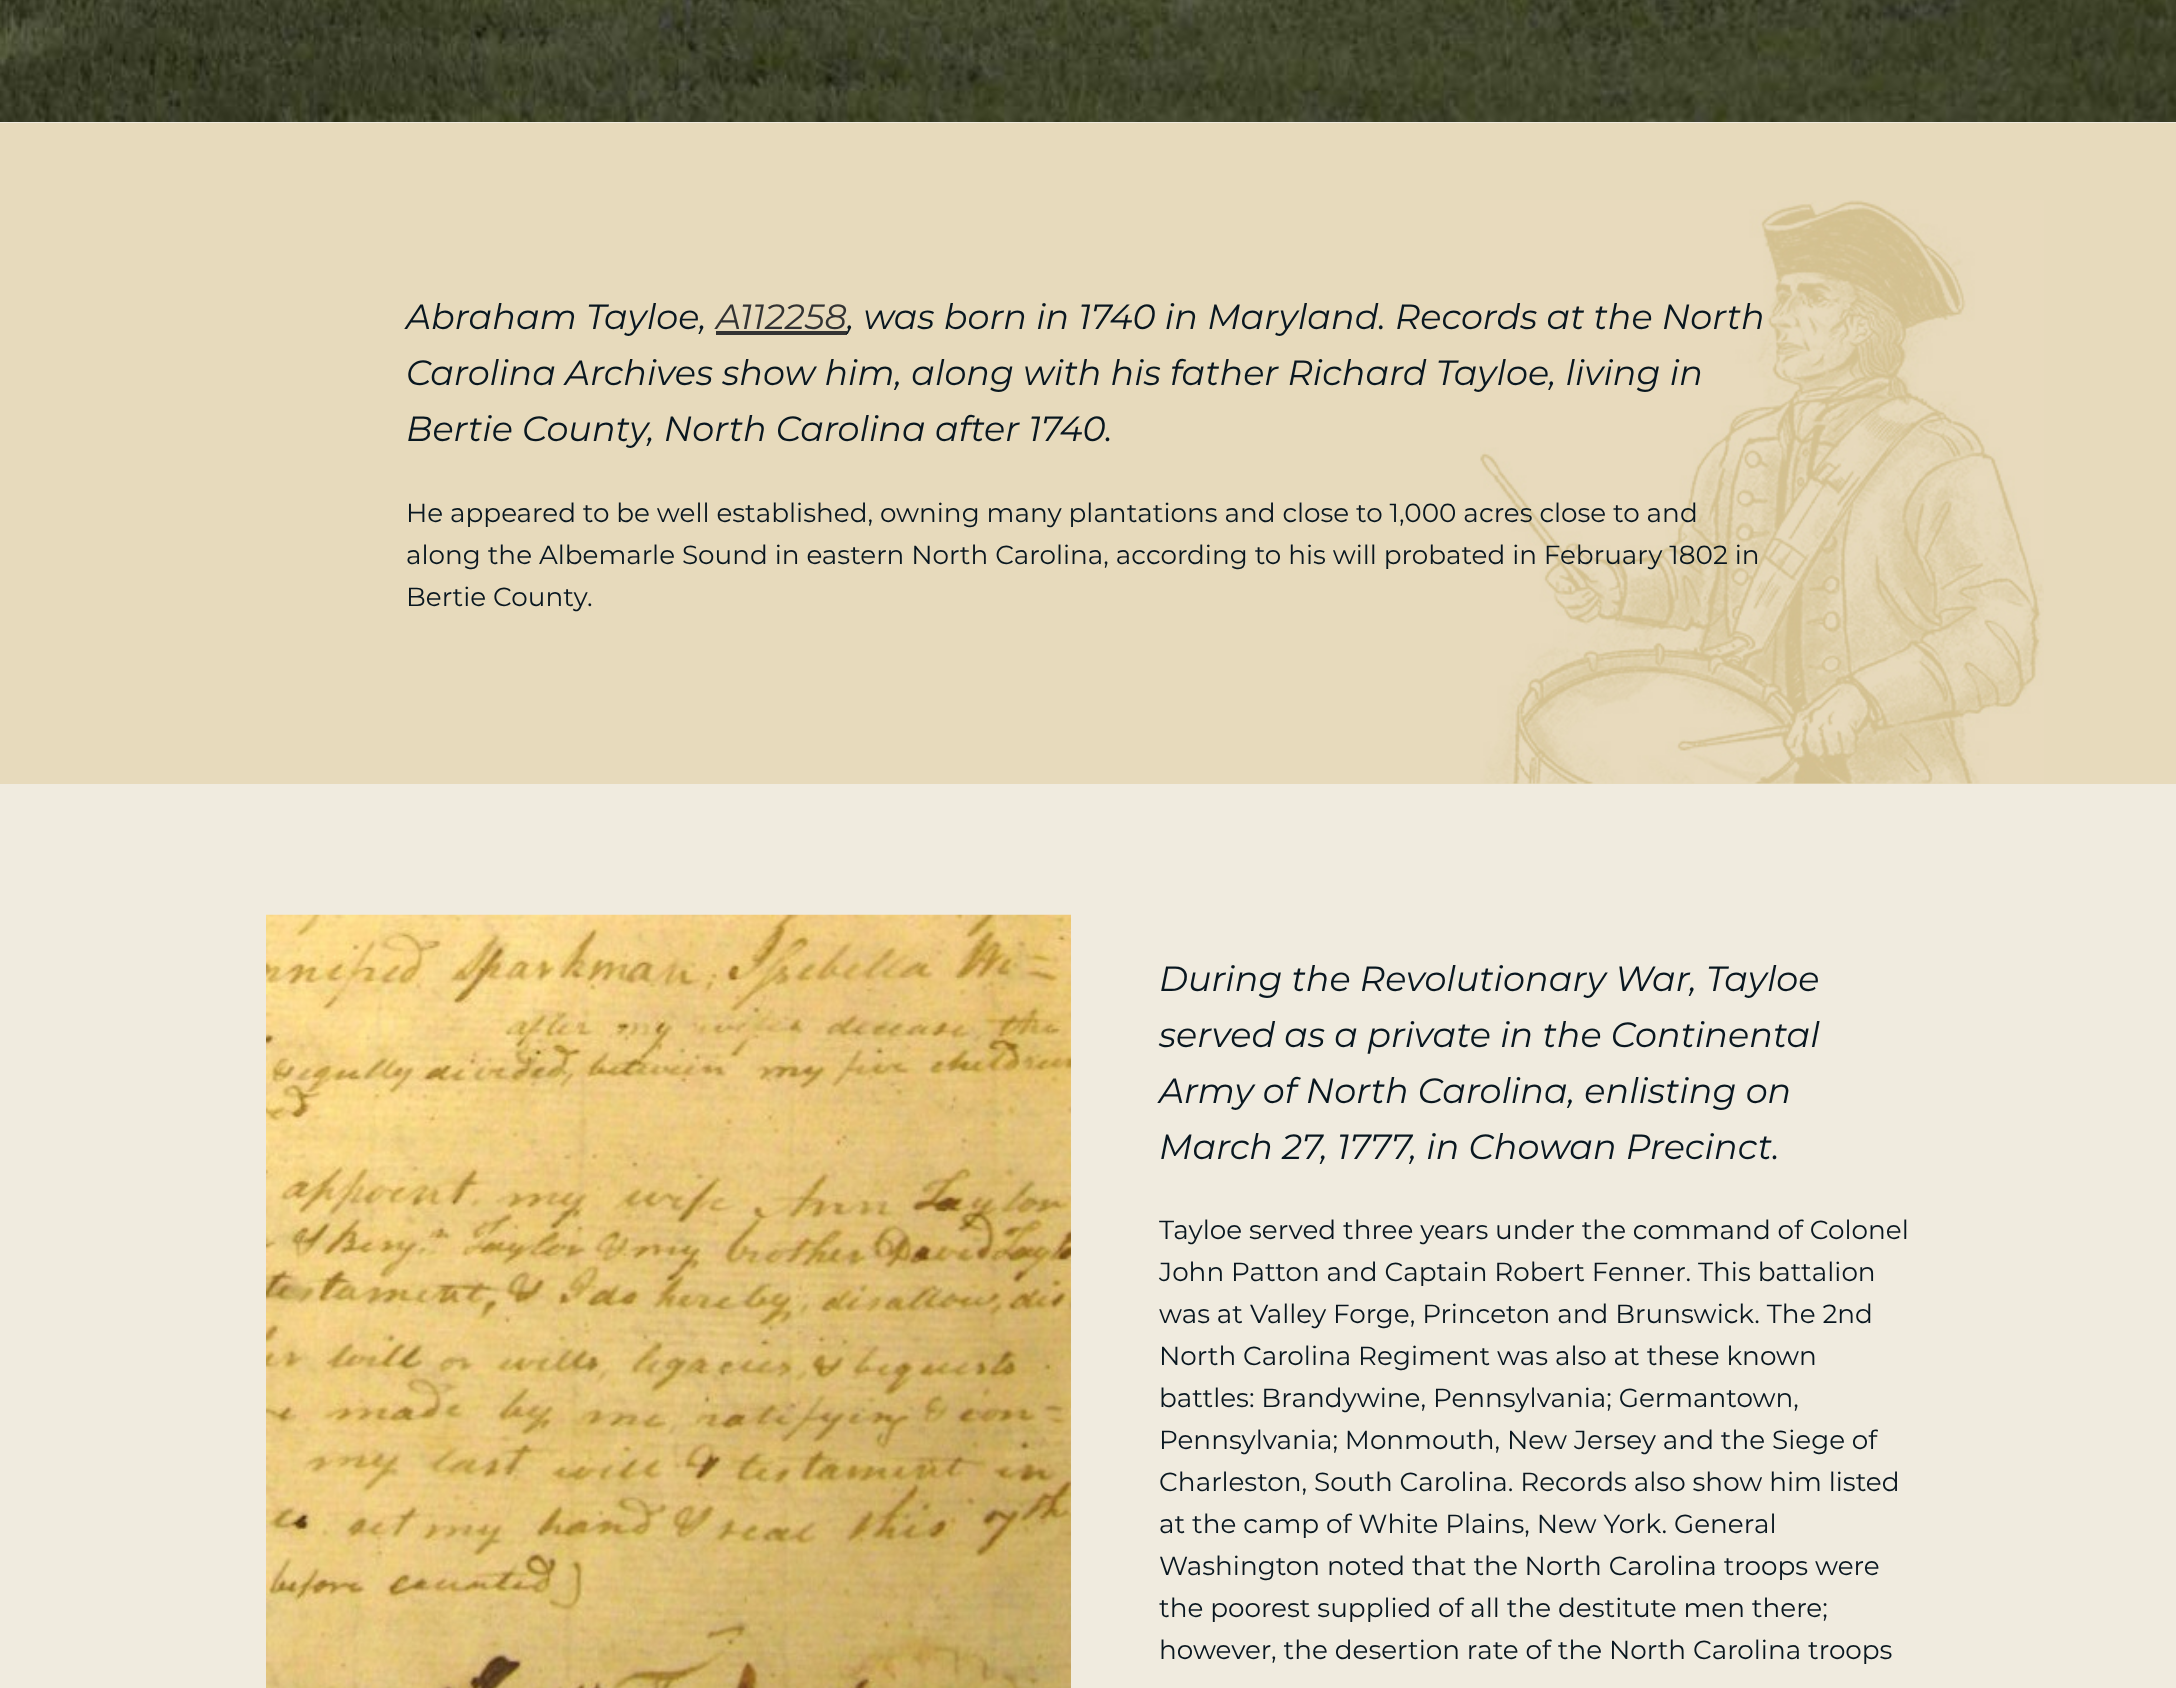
<svg xmlns="http://www.w3.org/2000/svg" width="2176" height="1688">
<style>
.a{font:italic 35px Montserrat;fill:#091720}
.b{font:italic 35px Montserrat;fill:#333}
.c{font:26.25px Montserrat;fill:#091720}
</style>
<rect width="100%" height="100%" fill="#f0ebdf"/>
<image href="1.png" x="0" y="0" width="2176" height="122"/>
<path fill="#e7dabc" d="M0 123h2176v661H0z"/>
<image href="2.png" x="1480" y="200" width="564" height="584"/>
<path fill="#333" d="M716 331h131v4H716z"/>
<image href="3.png" x="266" y="914" width="805" height="774"/>
<text class="a" x="406" y="329">Abraham Tayloe,</text>
<text class="b" x="716" y="329">A112258</text>
<text class="a" x="847" y="329">, was born in 1740 in Maryland. Records at the North</text>
<text class="a" x="406" y="385">Carolina Archives show him, along with his father Richard Tayloe, living in</text>
<text class="a" x="406" y="441">Bertie County, North Carolina after 1740.</text>
<text class="c" x="406" y="522">He appeared to be well established, owning many plantations and close to 1,000 acres close to and</text>
<text class="c" x="406" y="564">along the Albemarle Sound in eastern North Carolina, according to his will probated in February 1802 in</text>
<text class="c" x="406" y="606">Bertie County.</text>
<text class="a" x="1159" y="991">During the Revolutionary War, Tayloe</text>
<text class="a" x="1159" y="1047">served as a private in the Continental</text>
<text class="a" x="1159" y="1103">Army of North Carolina, enlisting on</text>
<text class="a" x="1159" y="1159">March 27, 1777, in Chowan Precinct.</text>
<text class="c" x="1159" y="1239">Tayloe served three years under the command of Colonel</text>
<text class="c" x="1159" y="1281">John Patton and Captain Robert Fenner. This battalion</text>
<text class="c" x="1159" y="1323">was at Valley Forge, Princeton and Brunswick. The 2nd</text>
<text class="c" x="1159" y="1365">North Carolina Regiment was also at these known</text>
<text class="c" x="1159" y="1407">battles: Brandywine, Pennsylvania; Germantown,</text>
<text class="c" x="1159" y="1449">Pennsylvania; Monmouth, New Jersey and the Siege of</text>
<text class="c" x="1159" y="1491">Charleston, South Carolina. Records also show him listed</text>
<text class="c" x="1159" y="1533">at the camp of White Plains, New York. General</text>
<text class="c" x="1159" y="1575">Washington noted that the North Carolina troops were</text>
<text class="c" x="1159" y="1617">the poorest supplied of all the destitute men there;</text>
<text class="c" x="1159" y="1659">however, the desertion rate of the North Carolina troops</text>
</svg>
